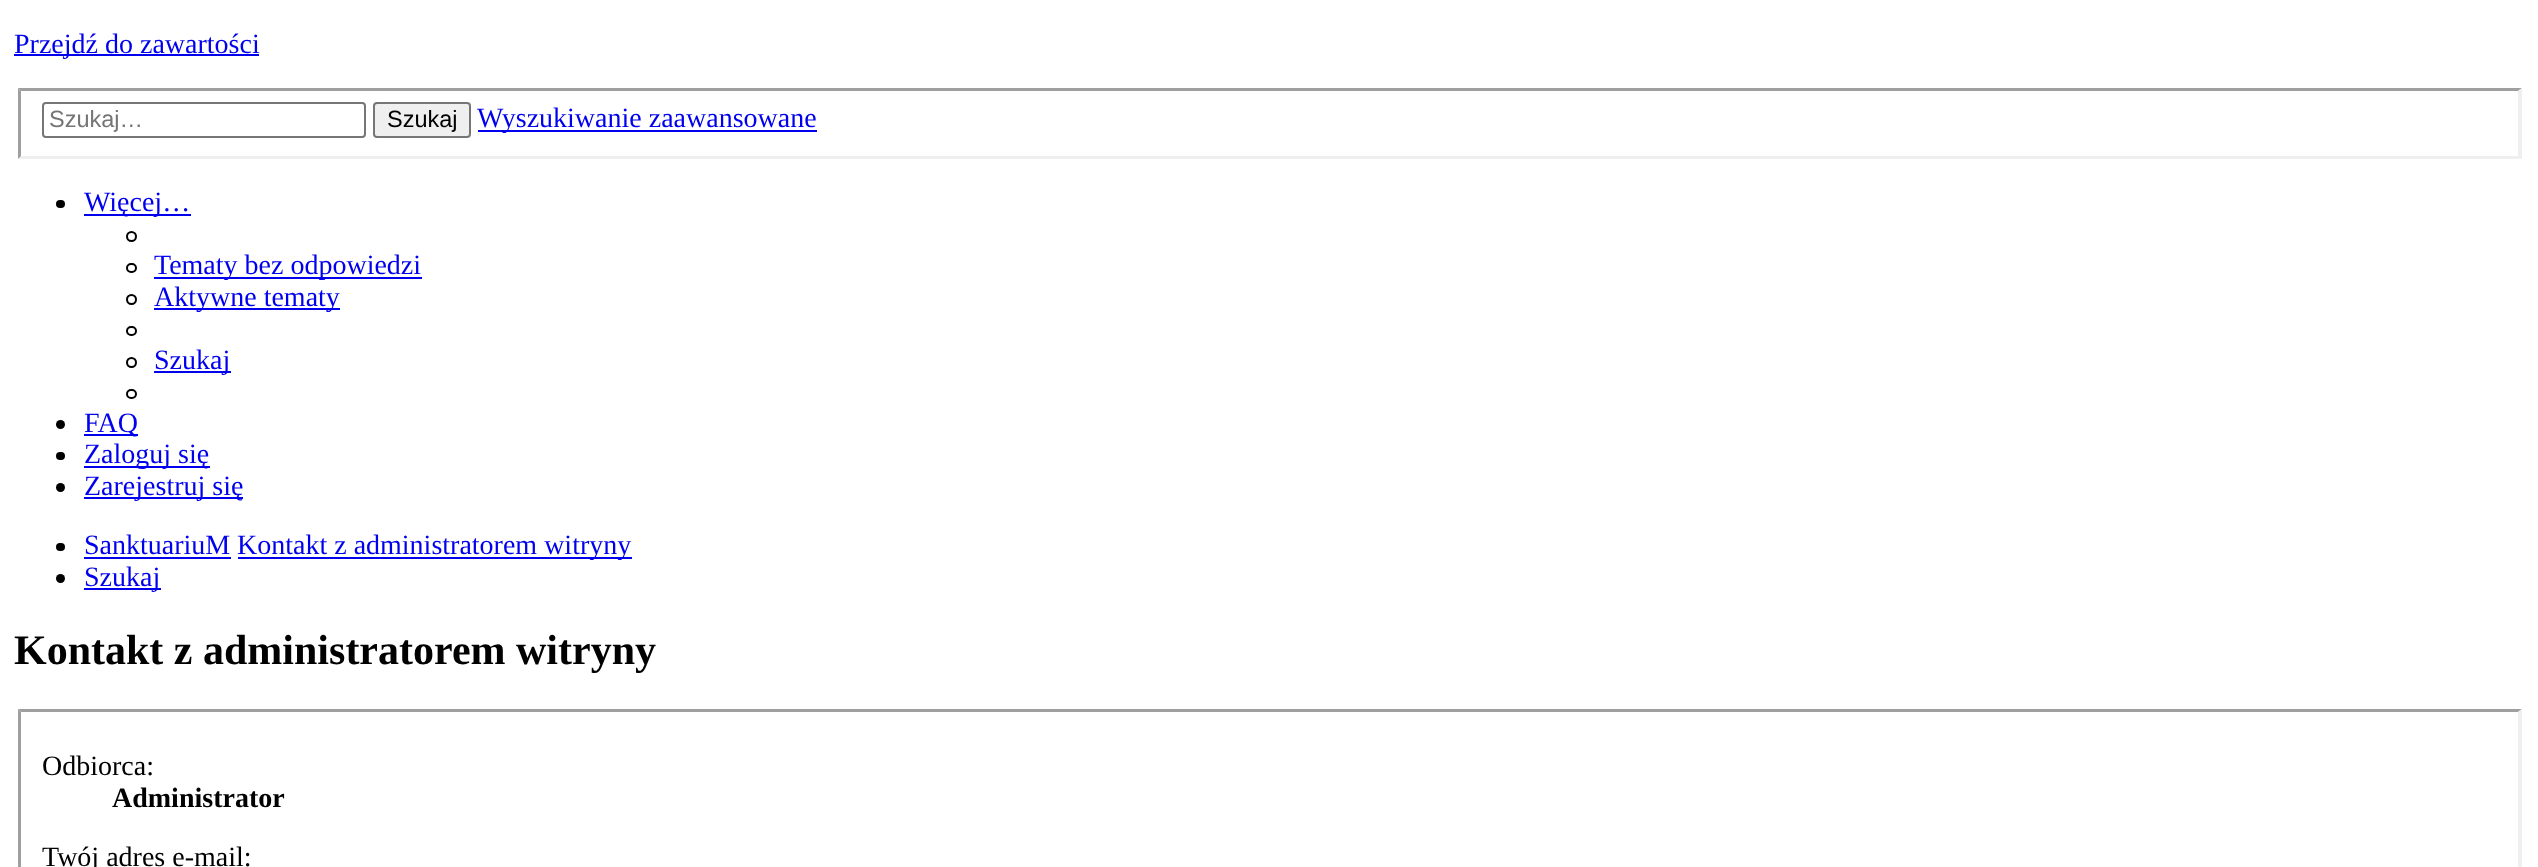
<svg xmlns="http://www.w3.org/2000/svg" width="2538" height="867">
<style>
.a{font:28px Liberation Serif;fill:#00e}
.b{font:23.5px Liberation Sans;fill:#757575}
.c{font:23.5px Liberation Sans;fill:#000}
.d{font:bold 42px Liberation Serif;fill:#000}
.e{font:28px Liberation Serif;fill:#000}
.f{font:bold 28px Liberation Serif;fill:#000}
</style>
<rect width="100%" height="100%" fill="#fff"/>
<path fill="#00e" d="M14 54h245v2H14z"/>
<path fill="#9f9f9f" d="M18 88h2504l-4 3h-2497z"/>
<path fill="#efefef" d="M2522 88v71l-4-3v-65z"/>
<path fill="#efefef" d="M2522 159h-2504l3-3h2497z"/>
<path fill="#9f9f9f" d="M18 159v-71l3 3v65z"/>
<rect fill="none" stroke="#767676" stroke-width="2" x="43" y="103" width="322" height="34" rx="3"/>
<rect fill="#efefef" stroke="#767676" stroke-width="2" x="374" y="103" width="96" height="34" rx="3"/>
<path fill="#00e" d="M478 130h339v2H478z"/>
<rect fill="#000" x="56" y="200" width="9" height="8" rx="4"/>
<path fill="#00e" d="M84 214h107v2H84z"/>
<circle fill="none" stroke="#000" stroke-width="2" cx="131.5" cy="236.5" r="4.5"/>
<rect fill="none" stroke="#000" stroke-width="2" x="127" y="264" width="9" height="8" rx="4"/>
<path fill="#00e" d="M154 277h268v2H154z"/>
<circle fill="none" stroke="#000" stroke-width="2" cx="131.5" cy="299.5" r="4.5"/>
<path fill="#00e" d="M154 308h186v2H154z"/>
<rect fill="none" stroke="#000" stroke-width="2" x="127" y="327" width="9" height="8" rx="4"/>
<circle fill="none" stroke="#000" stroke-width="2" cx="131.5" cy="362.5" r="4.5"/>
<path fill="#00e" d="M154 371h77v2H154z"/>
<rect fill="none" stroke="#000" stroke-width="2" x="127" y="390" width="9" height="8" rx="4"/>
<circle fill="#000" cx="60.5" cy="424.5" r="4.5"/>
<path fill="#00e" d="M84 434h54v2H84z"/>
<rect fill="#000" x="56" y="452" width="9" height="8" rx="4"/>
<path fill="#00e" d="M84 466h126v2H84z"/>
<circle fill="#000" cx="60.5" cy="487.5" r="4.5"/>
<path fill="#00e" d="M84 497h159v2H84z"/>
<rect fill="#000" x="56" y="543" width="9" height="8" rx="4"/>
<path fill="#00e" d="M84 557h147v2H84z"/>
<path fill="#00e" d="M238 557h394v2H238z"/>
<circle fill="#000" cx="60.5" cy="578.5" r="4.5"/>
<path fill="#00e" d="M84 588h77v2H84z"/>
<path fill="#9f9f9f" d="M18 709h2504l-4 3h-2497z"/>
<path fill="#efefef" d="M2522 709v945l-4-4v-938z"/>
<path fill="#9f9f9f" d="M18 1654v-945l3 3v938z"/>
<text class="a" x="14" y="53">Przejdź do zawartości</text>
<text class="b" x="49" y="127">Szukaj…</text>
<text class="c" x="387" y="127">Szukaj</text>
<text class="a" x="477" y="127">Wyszukiwanie zaawansowane</text>
<text class="a" x="84" y="211">Więcej…</text>
<text class="a" x="154" y="274">Tematy bez odpowiedzi</text>
<text class="a" x="154" y="306">Aktywne tematy</text>
<text class="a" x="154" y="369">Szukaj</text>
<text class="a" x="84" y="432">FAQ</text>
<text class="a" x="84" y="463">Zaloguj się</text>
<text class="a" x="84" y="495">Zarejestruj się</text>
<text class="a" x="84" y="554">SanktuariuM</text>
<text class="a" x="237" y="554">Kontakt z administratorem witryny</text>
<text class="a" x="84" y="586">Szukaj</text>
<text class="d" x="14" y="664">Kontakt z administratorem witryny</text>
<text class="e" x="42" y="775">Odbiorca:</text>
<text class="f" x="112" y="807">Administrator</text>
<text class="e" x="42" y="866">Twój adres e-mail:</text>
</svg>
